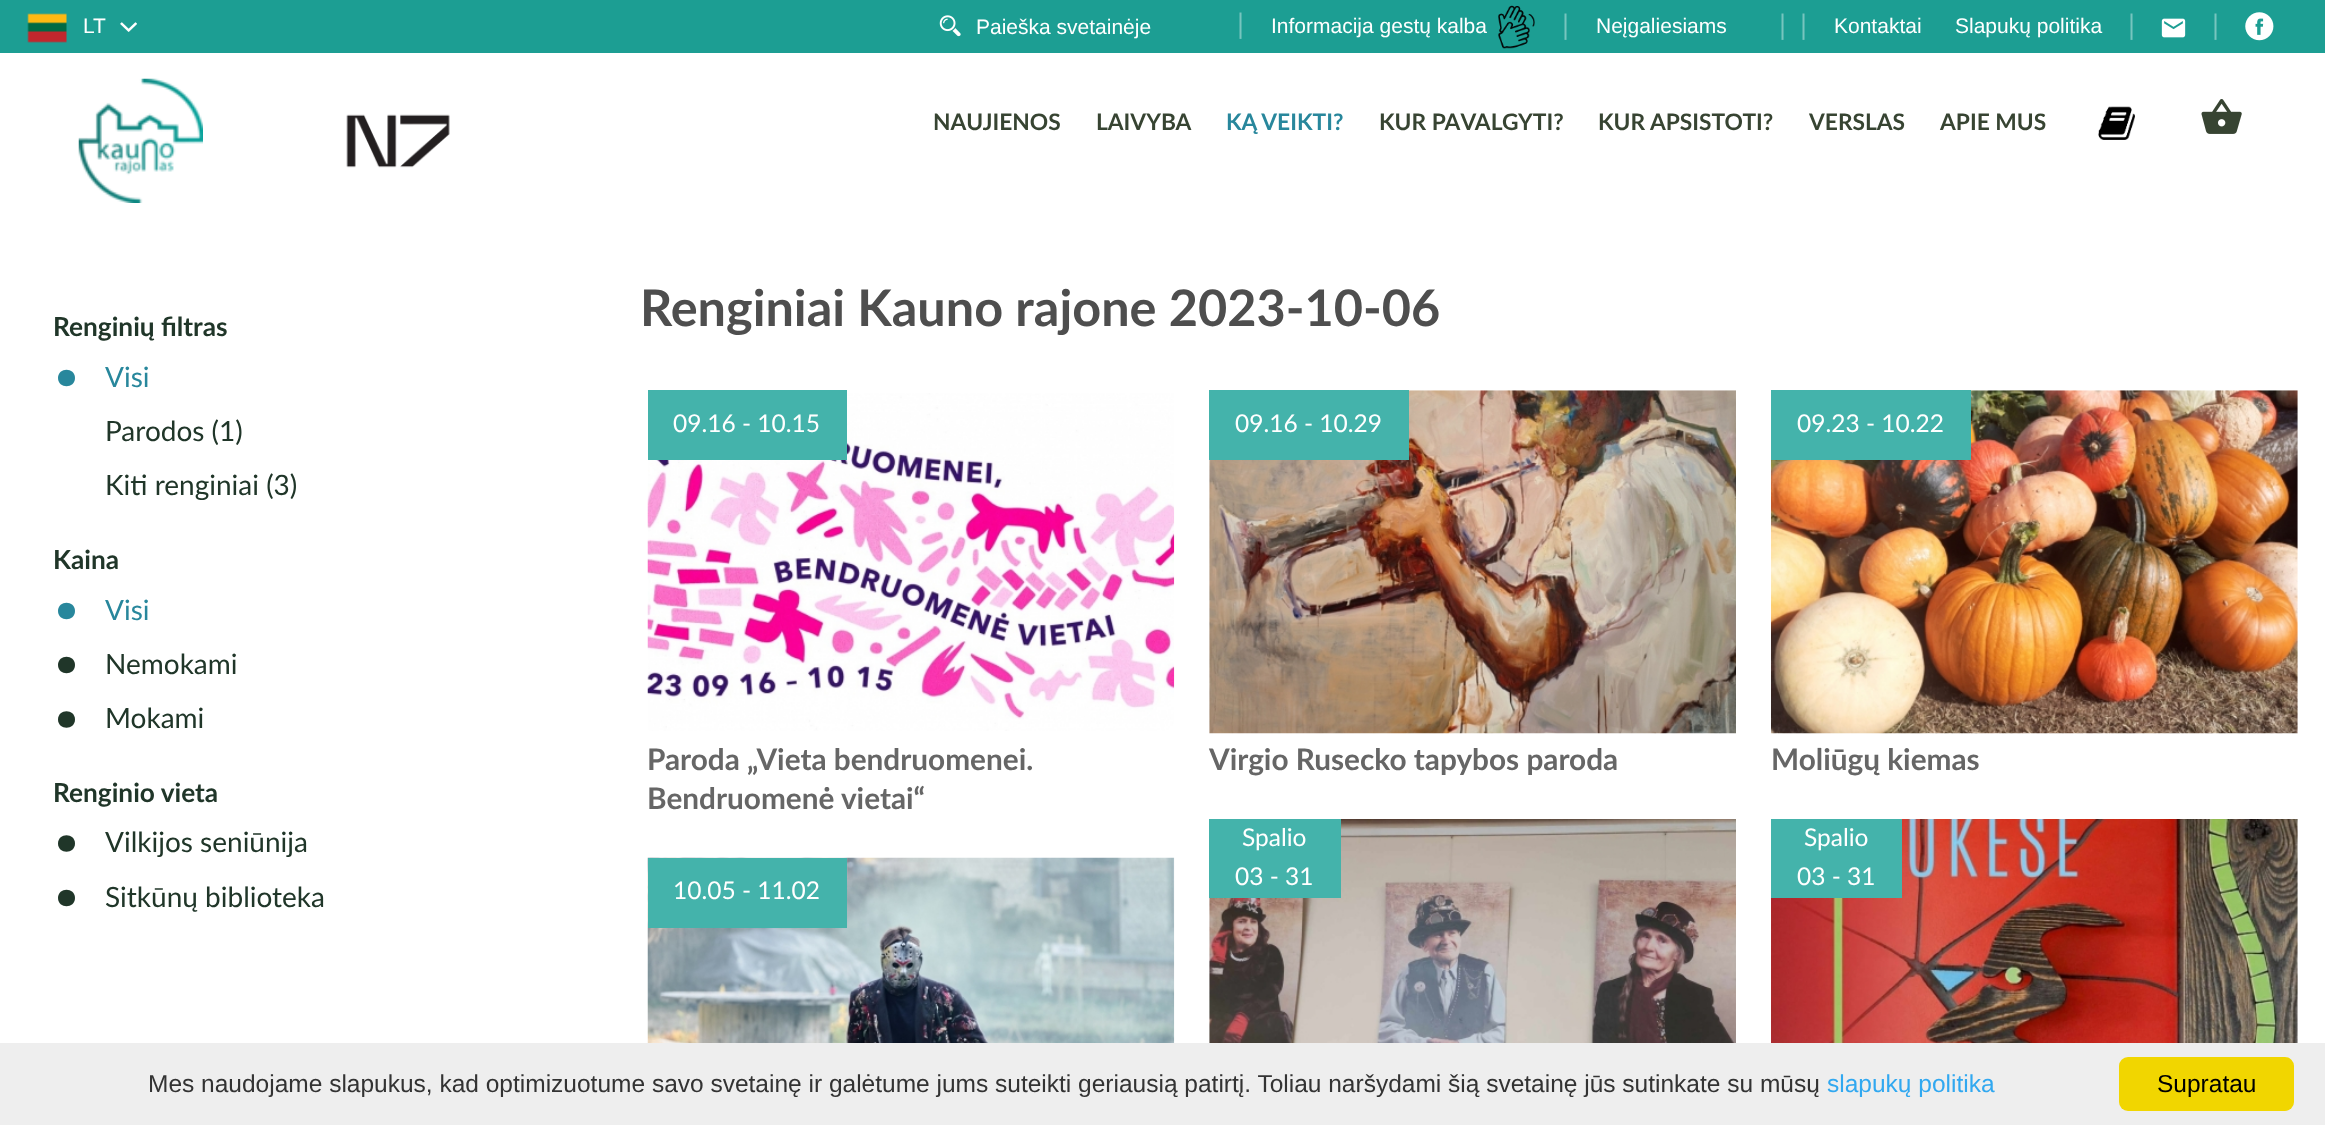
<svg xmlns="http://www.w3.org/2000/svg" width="2325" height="1125">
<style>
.a{font:21px Liberation Sans;fill:#fff}
.b{font:28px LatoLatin;fill:#77c5be}
.c{font:bold 22.75px LatoLatin;fill:#374432}
.d{font:bold 22.75px LatoLatin;fill:#28879c}
.e{font:bold 26.25px LatoLatin;fill:#203629}
.f{font:28px LatoLatin;fill:#28879c}
.g{font:28px LatoLatin;fill:#203629}
.h{font:bold 50.4px LatoLatin;fill:#4e4e4e}
.i{font:24.5px LatoLatin;fill:#fff}
.j{font:bold 29.75px LatoLatin;fill:#666}
.k{font:24.5px Liberation Sans;fill:#333}
.l{font:24.5px Liberation Sans;fill:#31a8f0}
.m{font:24.5px Liberation Sans;fill:#000}
</style>
<rect width="100%" height="100%" fill="#fff"/>
<path fill="#1c9e93" d="M0 0h2325v53H0z"/>
<image href="1.png" x="27" y="13" width="40" height="30"/>
<image href="2.png" x="120" y="22" width="17" height="10"/>
<image href="3.png" x="939" y="15" width="22" height="22"/>
<image href="4.png" x="1498" y="5" width="37" height="44"/>
<image href="5.png" x="2161" y="18" width="25" height="20"/>
<image href="6.png" x="2245" y="12" width="29" height="29"/>
<image href="7.png" x="78" y="78" width="125" height="125"/>
<image href="8.png" x="346" y="114" width="104" height="54"/>
<image href="9.png" x="2098" y="106" width="37" height="34"/>
<image href="10.png" x="2201" y="99" width="41" height="35"/>
<path fill="#28879c" d="M75 378c0-11-17-11-17 0c0 11 17 11 17 0z"/>
<path fill="#28879c" d="M75 611c0-11-17-11-17 0c0 11 17 11 17 0z"/>
<path fill="#203629" d="M75 665c0-11-17-11-17 0c0 11 17 11 17 0z"/>
<path fill="#203629" d="M75 719.5c0-11-17-11-17 0c0 11 17 11 17 0z"/>
<path fill="#203629" d="M75 843.5c0-11-17-11-17 0c0 11 17 11 17 0z"/>
<path fill="#203629" d="M75 898c0-11-17-11-17 0c0 11 17 11 17 0z"/>
<image href="11.png" x="647" y="393" width="528" height="338"/>
<path fill="#44b3ab" d="M648 390h199v70H648z"/>
<image href="12.png" x="1209" y="390" width="527" height="344"/>
<path fill="#44b3ab" d="M1209 390h200v70H1209z"/>
<image href="13.png" x="1771" y="390" width="527" height="344"/>
<path fill="#44b3ab" d="M1771 390h200v70H1771z"/>
<image href="14.png" x="1209" y="819" width="527" height="224"/>
<path fill="#44b3ab" d="M1209 819h132v79H1209z"/>
<image href="15.png" x="1771" y="819" width="527" height="224"/>
<path fill="#44b3ab" d="M1771 819h131v79H1771z"/>
<image href="16.png" x="647" y="857" width="528" height="186"/>
<path fill="#44b3ab" d="M648 858h199v70H648z"/>
<path fill="#eee" d="M0 1043h2325v82H0z"/>
<rect fill="#f1d600" x="2119" y="1057" width="175" height="54" rx="9"/>
<text class="a" x="83" y="33">LT</text>
<text class="a" x="976" y="34">Paieška svetainėje</text>
<text class="b" x="1237" y="34">|</text>
<text class="a" x="1271" y="33">Informacija gestų kalba</text>
<text class="b" x="1562" y="35">|</text>
<text class="a" x="1596" y="33">Neįgaliesiams</text>
<text class="b" x="1779" y="35">|</text>
<text class="b" x="1800" y="35">|</text>
<text class="a" x="1834" y="33">Kontaktai</text>
<text class="a" x="1955" y="33">Slapukų politika</text>
<text class="b" x="2128" y="35">|</text>
<text class="b" x="2212" y="35">|</text>
<text class="c" x="933" y="130">NAUJIENOS</text>
<text class="c" x="1096" y="130">LAIVYBA</text>
<text class="d" x="1226" y="130">KĄ VEIKTI?</text>
<text class="c" x="1379" y="130">KUR PAVALGYTI?</text>
<text class="c" x="1598" y="130">KUR APSISTOTI?</text>
<text class="c" x="1809" y="130">VERSLAS</text>
<text class="c" x="1940" y="130">APIE MUS</text>
<text class="e" x="53" y="336">Renginių filtras</text>
<text class="f" x="105" y="387">Visi</text>
<text class="g" x="105" y="441">Parodos (1)</text>
<text class="g" x="105" y="495">Kiti renginiai (3)</text>
<text class="e" x="53" y="569">Kaina</text>
<text class="f" x="105" y="620">Visi</text>
<text class="g" x="105" y="674">Nemokami</text>
<text class="g" x="105" y="728">Mokami</text>
<text class="e" x="53" y="802">Renginio vieta</text>
<text class="g" x="105" y="852">Vilkijos seniūnija</text>
<text class="g" x="105" y="907">Sitkūnų biblioteka</text>
<text class="h" x="640" y="326">Renginiai Kauno rajone 2023-10-06</text>
<text class="i" x="673" y="432">09.16 - 10.15</text>
<text class="j" x="647" y="770">Paroda „Vieta bendruomenei.</text>
<text class="j" x="647" y="809">Bendruomenė vietai“</text>
<text class="i" x="1235" y="432">09.16 - 10.29</text>
<text class="j" x="1209" y="770">Virgio Rusecko tapybos paroda</text>
<text class="i" x="1797" y="432">09.23 - 10.22</text>
<text class="j" x="1771" y="770">Moliūgų kiemas</text>
<text class="i" x="1242" y="846">Spalio</text>
<text class="i" x="1235" y="885">03 - 31</text>
<text class="i" x="1804" y="846">Spalio</text>
<text class="i" x="1797" y="885">03 - 31</text>
<text class="i" x="673" y="899">10.05 - 11.02</text>
<text class="k" x="148" y="1092">Mes naudojame slapukus, kad optimizuotume savo svetainę ir galėtume jums suteikti geriausią patirtį. Toliau naršydami šią svetainę jūs sutinkate su mūsų</text>
<text class="l" x="1827" y="1092">slapukų politika</text>
<text class="m" x="2157" y="1092">Supratau</text>
</svg>
